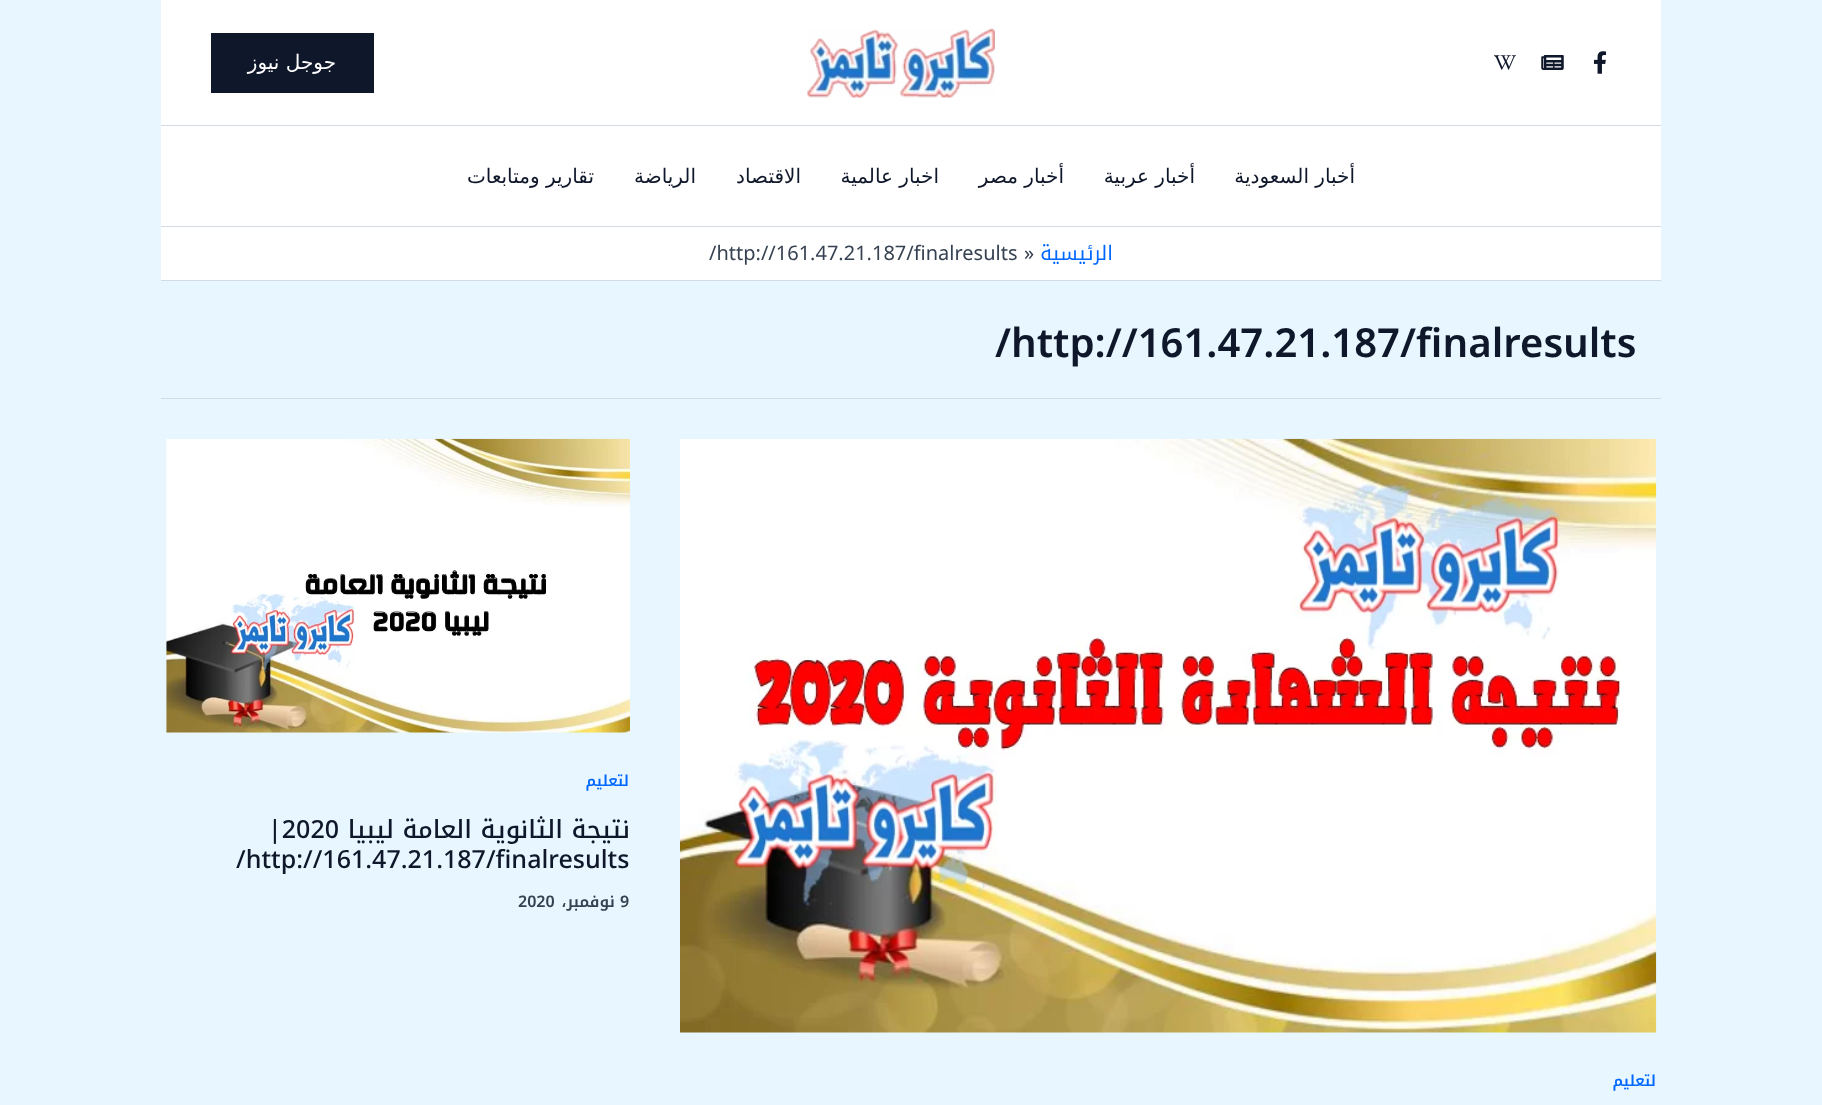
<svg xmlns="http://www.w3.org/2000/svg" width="1822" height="1105">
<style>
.a{font:20px DejaVu Sans;direction:rtl;fill:#fff}
.b{font:20px DejaVu Sans;direction:rtl;fill:#0f172a}
.c{font:20px Noto Kufi Arabic;direction:rtl;fill:#0067ff}
.d{font:20px Noto Kufi Arabic;fill:#364151}
.e{font:600 40px Noto Kufi Arabic;fill:#0f172a}
.f{font:600 15px Noto Kufi Arabic;letter-spacing:0.5px;direction:rtl;fill:#0067ff}
.g{font:500 25px Noto Kufi Arabic;direction:rtl;fill:#0f172a}
.h{font:500 25px Noto Kufi Arabic;fill:#0f172a}
.i{font:600 16px Noto Kufi Arabic;fill:#364151}
.j{font:600 16px Noto Kufi Arabic;direction:rtl;fill:#364151}
</style>
<defs>
<clipPath id="clip1"><path d="M166 439h464v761H166z"/></clipPath>
<clipPath id="clip2"><path d="M680 439h976v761H680z"/></clipPath>
</defs>
<rect width="100%" height="100%" fill="#e7f6ff"/>
<path fill="#fff" d="M161 0h1500v125H161z"/>
<path fill="#d1dae5" d="M161 125h1500v1H161z"/>
<image href="1.png" x="1593" y="51" width="14" height="23"/>
<image href="2.png" x="1541" y="55" width="23" height="15"/>
<image href="3.png" x="1494" y="55" width="22" height="15"/>
<image href="4.png" x="807" y="28" width="188" height="70"/>
<path fill="#0f172a" d="M211 33h163v60H211z"/>
<path fill="#fff" d="M161 126h1500v154H161z"/>
<path fill="#d1dae5" d="M161 226h1500v1H161z"/>
<path fill="#d1dae5" d="M161 280h1500v1H161z"/>
<path fill="#d1dae5" d="M161 398h1500v1H161z"/>
<image href="5.png" x="166" y="438" width="464" height="295"/>
<image href="6.png" x="680" y="438" width="977" height="595"/>
<text class="a" x="336" y="69">جوجل نيوز</text>
<text class="b" x="1355" y="183">أخبار السعودية</text>
<text class="b" x="1195" y="183">أخبار عربية</text>
<text class="b" x="1064" y="183">أخبار مصر</text>
<text class="b" x="939" y="183">اخبار عالمية</text>
<text class="b" x="801" y="183">الاقتصاد</text>
<text class="b" x="696" y="183">الرياضة</text>
<text class="b" x="594" y="183">تقارير ومتابعات</text>
<text class="c" x="1113" y="260">الرئيسية</text>
<text class="d" x="1024" y="260">»</text>
<text class="d" x="709" y="260">/http://161.47.21.187/finalresults</text>
<text class="e" x="995" y="357">/http://161.47.21.187/finalresults</text>
<g clip-path="url(#clip1)">
<text class="f" x="634" y="786">التعليم</text>
</g>
<text class="g" x="630" y="838">نتيجة الثانوية العامة ليبيا</text>
<text class="h" x="268" y="838">|2020</text>
<text class="h" x="236" y="868">/http://161.47.21.187/finalresults</text>
<text class="i" x="620" y="907">9</text>
<text class="j" x="615" y="907">نوفمبر،</text>
<text class="i" x="518" y="907">2020</text>
<g clip-path="url(#clip2)">
<text class="f" x="1661" y="1086">التعليم</text>
</g>
</svg>
